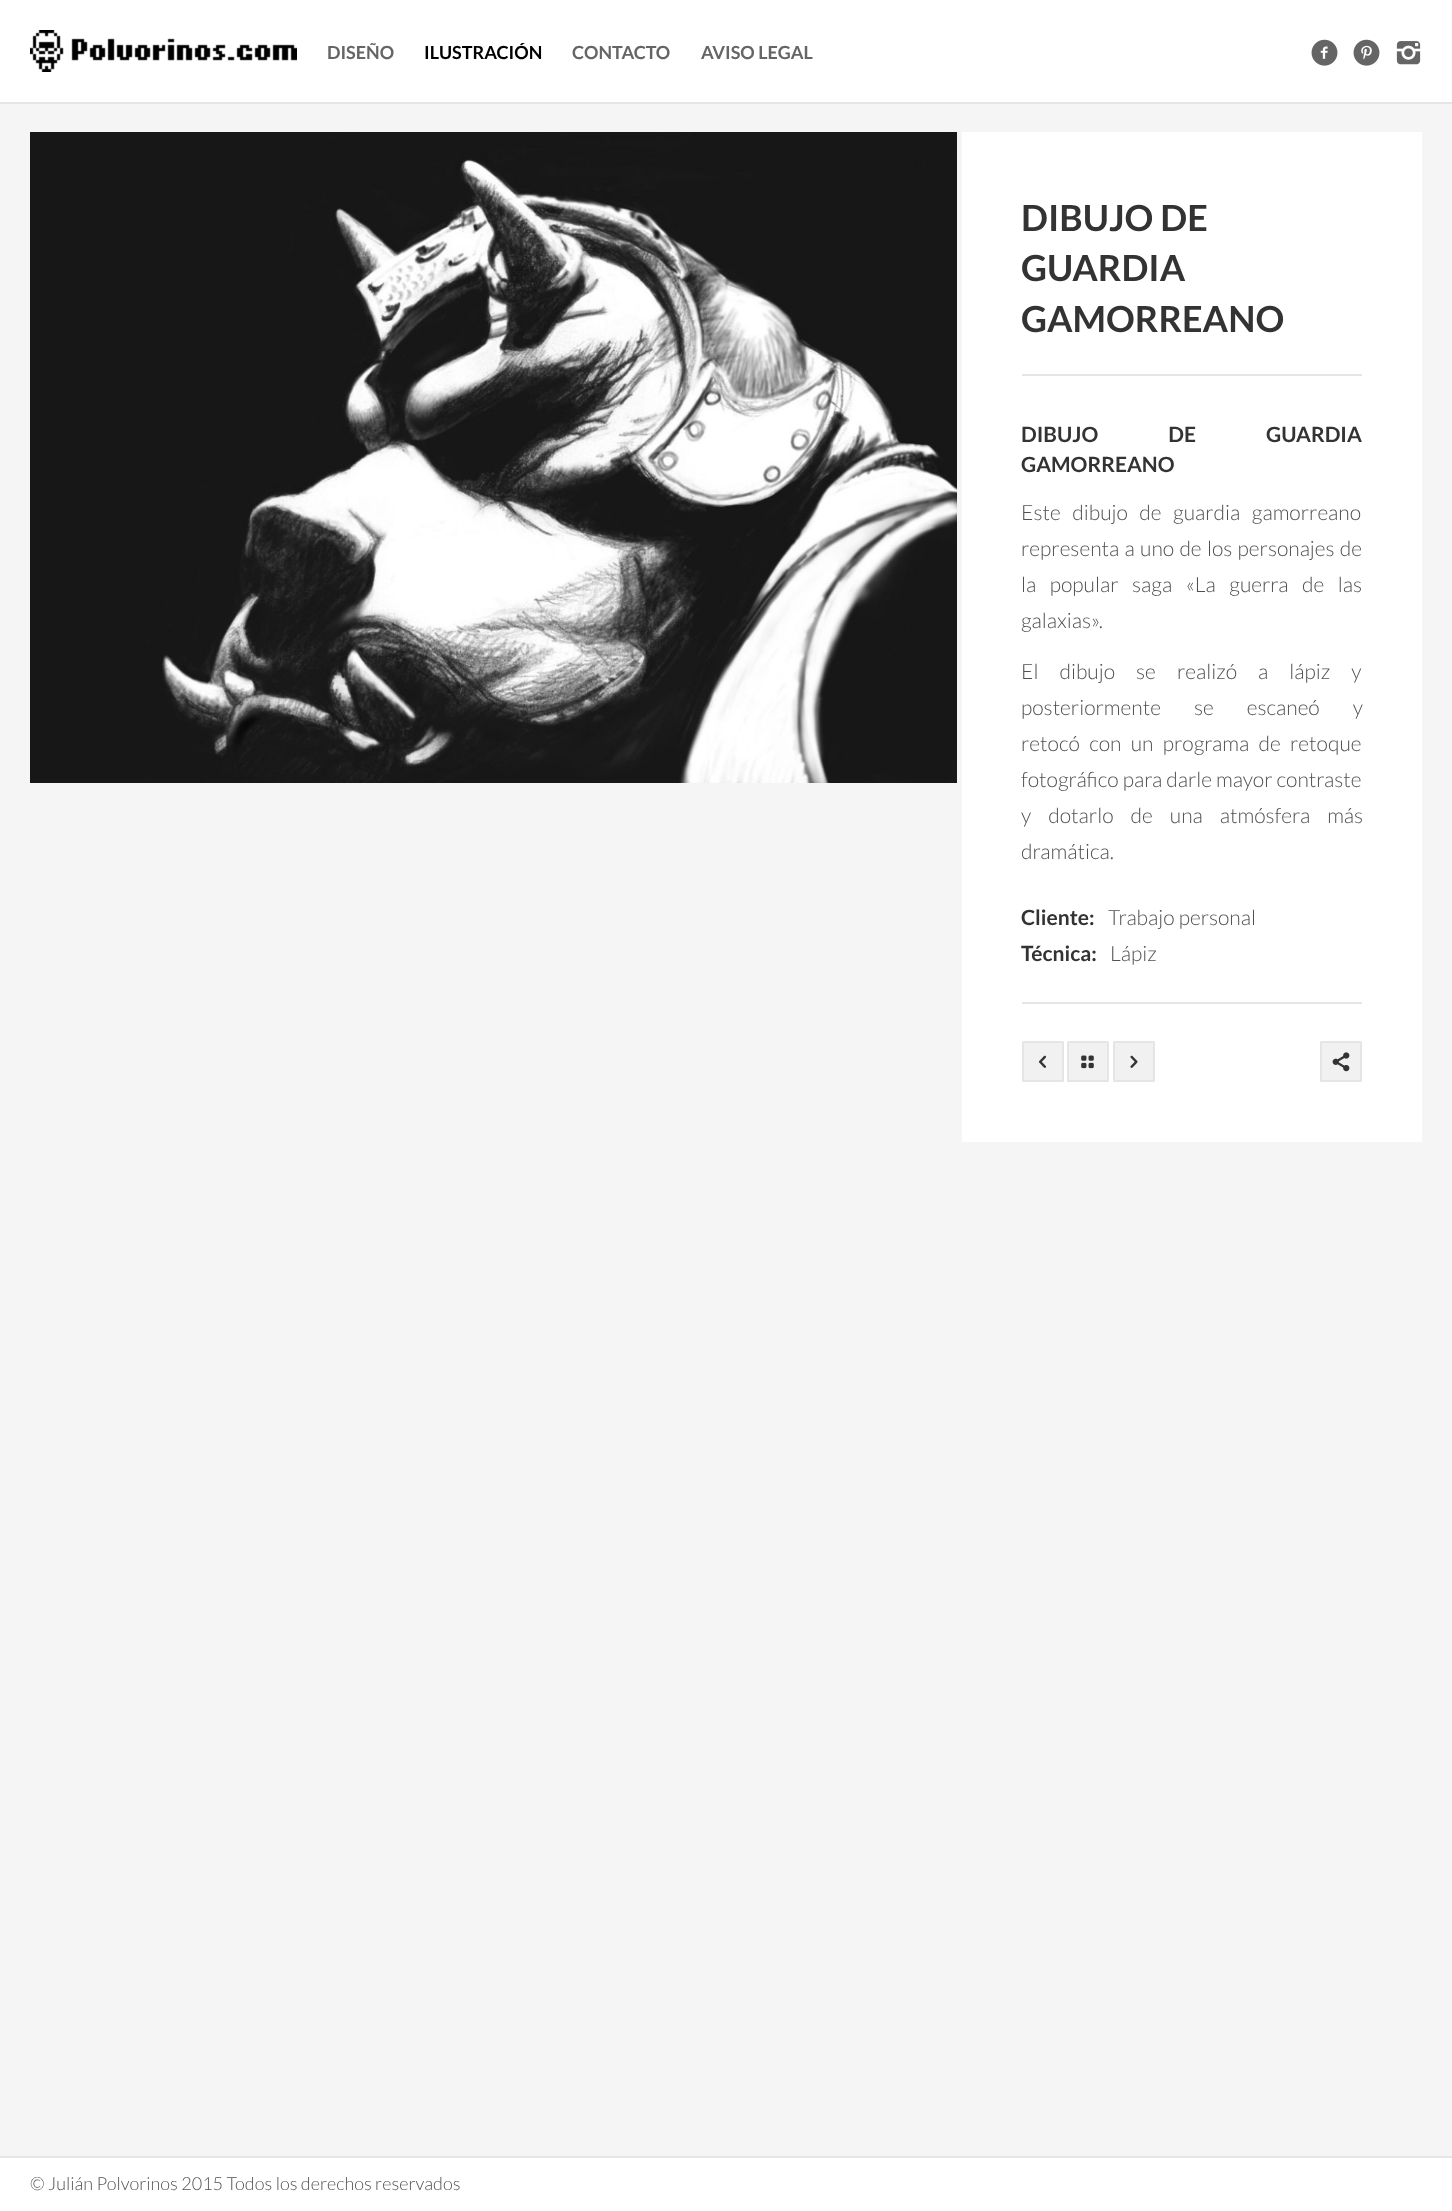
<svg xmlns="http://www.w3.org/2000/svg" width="1452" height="2211">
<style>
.a{font:bold 18px Lato;fill:#656565}
.b{font:bold 18px Lato;fill:#000}
.c{font:bold 36px Lato;fill:#333}
.d{font:bold 21px Lato;fill:#333}
.e{font:300 21px Lato;fill:#515151}
.f{font:300 18px Lato;fill:#515151}
</style>
<rect width="100%" height="100%" fill="#f5f5f5"/>
<path fill="#e5e5e5" d="M0 102h1452v2H0z"/>
<path fill="#fff" d="M0 0h1452v102H0z"/>
<image href="1.png" x="30" y="30" width="267" height="42"/>
<image href="2.png" x="1311" y="39" width="27" height="27"/>
<image href="3.png" x="1353" y="39" width="27" height="27"/>
<image href="4.png" x="1396" y="41" width="25" height="24"/>
<image href="5.png" x="30" y="132" width="927" height="651"/>
<path fill="#fff" d="M962 132h460v1010H962z"/>
<path fill="#e5e5e5" d="M1022 374h340v2H1022z"/>
<path fill="#e5e5e5" d="M1022 1002h340v2H1022z"/>
<rect fill="#f1f1f1" stroke="#e5e5e5" stroke-width="2" x="1023" y="1042" width="40" height="39" rx="0.5"/>
<image href="6.png" x="1038" y="1055" width="8" height="13"/>
<rect fill="#f1f1f1" stroke="#e5e5e5" stroke-width="2" x="1068" y="1042" width="40" height="39" rx="0.5"/>
<image href="7.png" x="1081" y="1055" width="13" height="14"/>
<rect fill="#f1f1f1" stroke="#e5e5e5" stroke-width="2" x="1114" y="1042" width="40" height="39" rx="0.5"/>
<image href="8.png" x="1130" y="1055" width="8" height="13"/>
<rect fill="#f1f1f1" stroke="#e5e5e5" stroke-width="2" x="1321" y="1042" width="40" height="39" rx="0.5"/>
<image href="9.png" x="1332" y="1052" width="18" height="20"/>
<path fill="#fff" d="M0 2158h1452v53H0z"/>
<path fill="#e5e5e5" d="M0 2156h1452v2H0z"/>
<text class="a" x="327" y="59">DISEÑO</text>
<text class="b" x="424" y="59">ILUSTRACIÓN</text>
<text class="a" x="572" y="59">CONTACTO</text>
<text class="a" x="701" y="59">AVISO LEGAL</text>
<text class="c" x="1021" y="231">DIBUJO DE</text>
<text class="c" x="1021" y="281">GUARDIA</text>
<text class="c" x="1021" y="332">GAMORREANO</text>
<text class="d" x="1021" y="442" word-spacing="66">DIBUJO DE GUARDIA</text>
<text class="d" x="1021" y="472">GAMORREANO</text>
<text class="e" x="1021" y="520" word-spacing="7.5">Este dibujo de guardia gamorreano</text>
<text class="e" x="1021" y="556" word-spacing="1.25">representa a uno de los personajes de</text>
<text class="e" x="1021" y="592" word-spacing="9.5">la popular saga «La guerra de las</text>
<text class="e" x="1021" y="628">galaxias».</text>
<text class="e" x="1021" y="679" word-spacing="17">El dibujo se realizó a lápiz y</text>
<text class="e" x="1021" y="715" word-spacing="29">posteriormente se escaneó y</text>
<text class="e" x="1021" y="751" word-spacing="5.25">retocó con un programa de retoque</text>
<text class="e" x="1021" y="787">fotográfico para darle mayor contraste</text>
<text class="e" x="1021" y="823" word-spacing="13">y dotarlo de una atmósfera más</text>
<text class="e" x="1021" y="859">dramática.</text>
<text class="d" x="1021" y="925">Cliente:</text>
<text class="e" x="1108" y="925">Trabajo personal</text>
<text class="d" x="1021" y="961">Técnica:</text>
<text class="e" x="1110" y="961">Lápiz</text>
<text class="f" x="30" y="2190">© Julián Polvorinos 2015 Todos los derechos reservados</text>
</svg>
